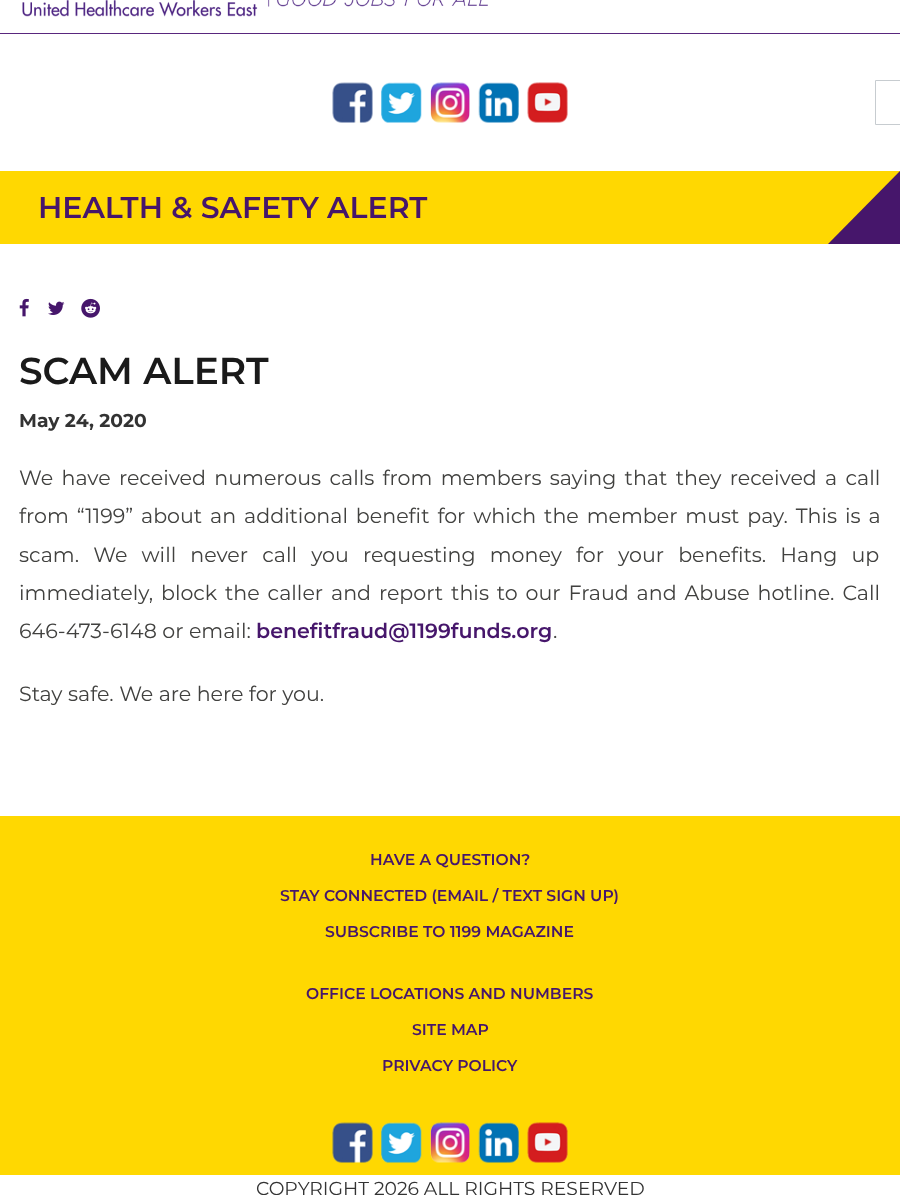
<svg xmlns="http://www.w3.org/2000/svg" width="900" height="1201">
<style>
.a{font:600 30px Montserrat;fill:#46166b}
.b{font:600 37.5px Montserrat;fill:#1a1a1a}
.c{font:bold 18.75px Montserrat;fill:#333}
.d{font:20.6px Montserrat;fill:#41413f}
.e{font:600 20.6px Montserrat;fill:#46166b}
.f{font:600 15.6px Montserrat;fill:#46166b}
.g{font:18.75px Montserrat;fill:#333}
</style>
<rect width="100%" height="100%" fill="#fff"/>
<image href="1.png" x="22" y="0" width="466" height="17"/>
<path fill="#59277e" d="M0 33h900v1H0z"/>
<image href="2.png" x="332" y="82" width="41" height="41"/>
<image href="3.png" x="381" y="82" width="41" height="41"/>
<image href="4.png" x="430" y="82" width="40" height="41"/>
<image href="5.png" x="478" y="82" width="41" height="41"/>
<image href="6.png" x="527" y="82" width="41" height="41"/>
<path fill="none" stroke="#c7ccd0" d="M875.5 80.5h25v44H875.5z"/>
<path fill="#ffd801" d="M0 171h900v73H0z"/>
<path fill="#46166b" d="M900 171v73h-72z"/>
<image href="7.png" x="19" y="298" width="10" height="19"/>
<image href="8.png" x="48" y="301" width="17" height="14"/>
<image href="9.png" x="81" y="298" width="19" height="20"/>
<path fill="#ffd801" d="M0 816h900v359H0z"/>
<image href="10.png" x="332" y="1122" width="41" height="41"/>
<image href="11.png" x="381" y="1122" width="41" height="41"/>
<image href="12.png" x="430" y="1122" width="40" height="41"/>
<image href="13.png" x="478" y="1122" width="41" height="41"/>
<image href="14.png" x="527" y="1122" width="41" height="41"/>
<text class="a" x="38" y="218">HEALTH &amp; SAFETY ALERT</text>
<text class="b" x="19" y="384">SCAM ALERT</text>
<text class="c" x="19" y="427">May 24, 2020</text>
<text class="d" x="19" y="485" word-spacing="2.9">We have received numerous calls from members saying that they received a call</text>
<text class="d" x="19" y="523" word-spacing="2.5">from “1199” about an additional benefit for which the member must pay. This is a</text>
<text class="d" x="19" y="562" word-spacing="8.75">scam. We will never call you requesting money for your benefits. Hang up</text>
<text class="d" x="19" y="600" word-spacing="2.5">immediately, block the caller and report this to our Fraud and Abuse hotline. Call</text>
<text class="d" x="19" y="638">646-473-6148 or email:</text>
<text class="e" x="256" y="638">benefitfraud@1199funds.org</text>
<text class="d" x="553" y="638">.</text>
<text class="d" x="19" y="701">Stay safe. We are here for you.</text>
<text class="f" x="370" y="865">HAVE A QUESTION?</text>
<text class="f" x="280" y="901">STAY CONNECTED (EMAIL / TEXT SIGN UP)</text>
<text class="f" x="325" y="937">SUBSCRIBE TO 1199 MAGAZINE</text>
<text class="f" x="306" y="999">OFFICE LOCATIONS AND NUMBERS</text>
<text class="f" x="412" y="1035">SITE MAP</text>
<text class="f" x="382" y="1071">PRIVACY POLICY</text>
<text class="g" x="256" y="1195">COPYRIGHT 2026 ALL RIGHTS RESERVED</text>
</svg>
